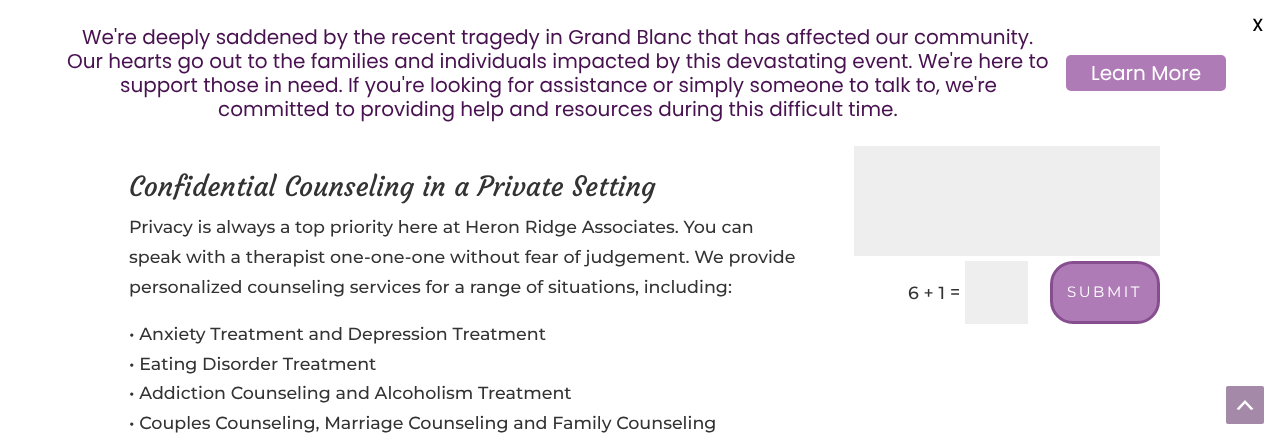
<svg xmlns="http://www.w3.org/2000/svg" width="1288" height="448">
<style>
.a{font:500 17.5px Poppins;fill:#000}
.b{font:20px Poppins;fill:#481250}
.c{font:20px Poppins;fill:#fff}
.d{font:27.5px Courgette;fill:#333}
.e{font:100 17.5px Montserrat;fill:#333}
.f{font:100 15px 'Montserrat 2';letter-spacing:2.5px;fill:#fff}
</style>
<rect width="100%" height="100%" fill="#fff"/>
<rect fill="#ae7bb6" x="1066" y="55" width="160" height="36" rx="5"/>
<path fill="#eee" d="M854 146h306v110H854z"/>
<path fill="#eee" d="M965 261h63v63H965z"/>
<rect fill="#ae7bb6" stroke="#864d8f" stroke-width="3" x="1051.5" y="262.5" width="107" height="60" rx="21.5"/>
<rect fill="#a489a8" x="1226" y="386" width="38" height="38" rx="2"/>
<path fill="#fff" d="M1251 410l-6-6.5l-6 6.5l-2.5-1l8.5-9l8.5 9z"/>
<text class="a" x="1252" y="31">X</text>
<text class="b" x="82" y="44">We're deeply saddened by the recent tragedy in Grand Blanc that has affected our community.</text>
<text class="b" x="67" y="68">Our hearts go out to the families and individuals impacted by this devastating event. We're here to</text>
<text class="b" x="120" y="92">support those in need. If you're looking for assistance or simply someone to talk to, we're</text>
<text class="b" x="218" y="116">committed to providing help and resources during this difficult time.</text>
<text class="c" x="1091" y="80">Learn More</text>
<text class="d" x="129" y="196">Confidential Counseling in a Private Setting</text>
<text class="e" x="129" y="233">Privacy is always a top priority here at Heron Ridge Associates. You can</text>
<text class="e" x="129" y="263">speak with a therapist one-one-one without fear of judgement. We provide</text>
<text class="e" x="129" y="293">personalized counseling services for a range of situations, including:</text>
<text class="e" x="129" y="340">• Anxiety Treatment and Depression Treatment</text>
<text class="e" x="129" y="370">• Eating Disorder Treatment</text>
<text class="e" x="129" y="399">• Addiction Counseling and Alcoholism Treatment</text>
<text class="e" x="129" y="429">• Couples Counseling, Marriage Counseling and Family Counseling</text>
<text class="e" x="908" y="299">6 + 1</text>
<text class="e" x="950" y="298">=</text>
<text class="f" x="1067" y="297">SUBMIT</text>
</svg>
